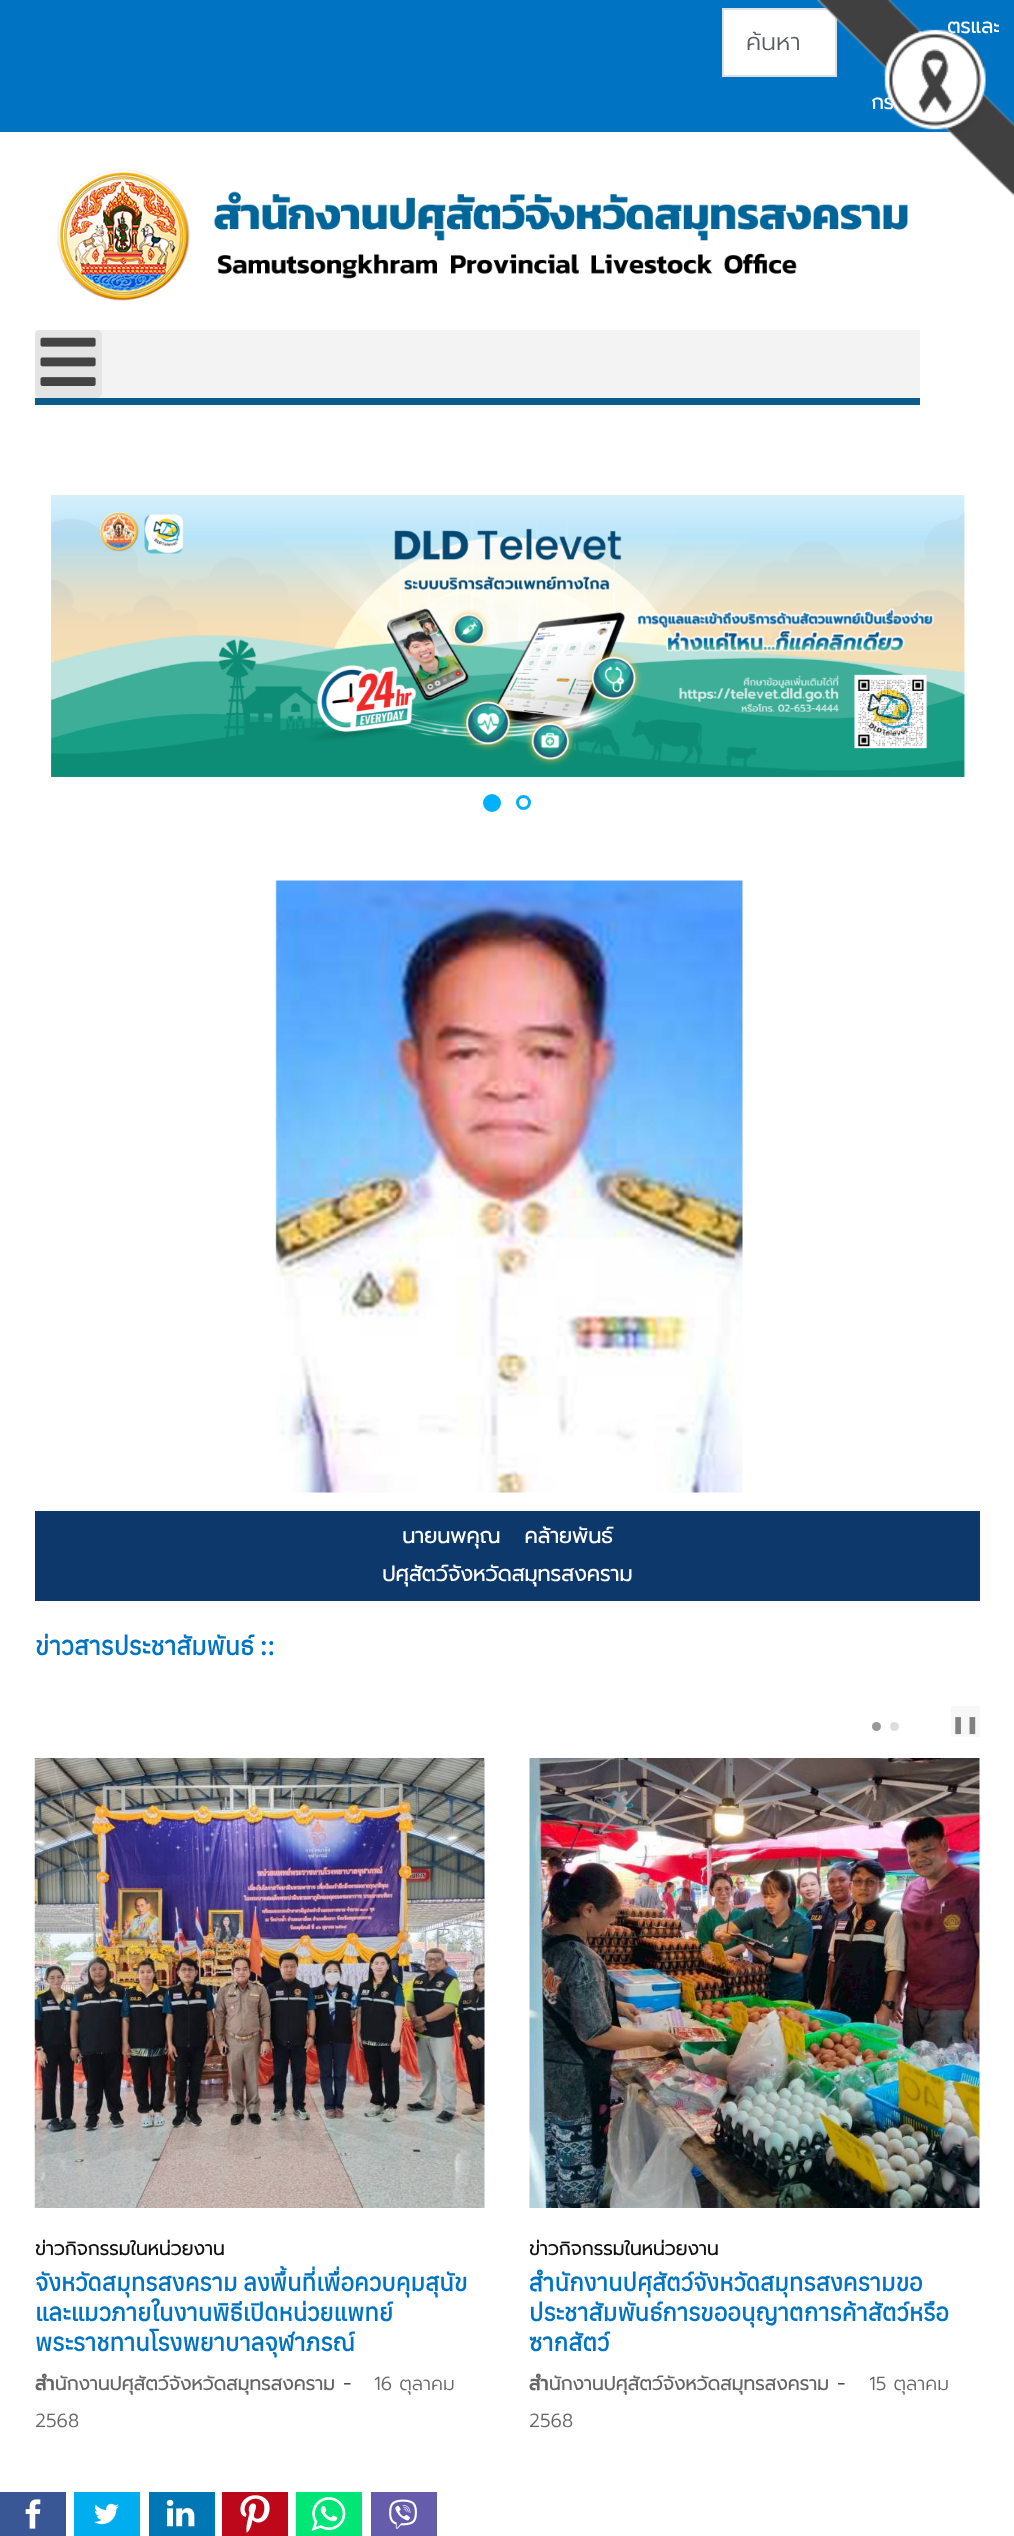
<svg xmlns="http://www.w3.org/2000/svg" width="1014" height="2536">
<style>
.a{font:300 24px Prompt;fill:#595c5f}
.b{font:bold 20px Prompt;fill:#fff}
.c{font:bold 21px Prompt;fill:#fff}
.d{font:bold 25.25px Anuphan;fill:#0074c2}
.e{font:17px DejaVu Sans;fill:#808080}
.f{font:bold 18.9px Prompt;fill:#111}
.g{font:bold 24px Anuphan;fill:#0074c2}
.h{font:bold 18.9px Prompt;fill:#666}
.i{font:300 21px Prompt;fill:#333}
.j{font:300 18.9px Prompt;fill:#666}
</style>
<defs>
<clipPath id="clip1"><path d="M746 24h67v36H746z"/></clipPath>
<clipPath id="clip2"><path d="M35 1758h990v707H35z"/></clipPath>
</defs>
<rect width="100%" height="100%" fill="#fff"/>
<path fill="#f3f3f3" d="M35 330h885v68H35z"/>
<rect fill="#e4e4e4" x="35" y="330" width="67" height="68" rx="5"/>
<image href="2.png" x="40" y="337" width="56" height="49"/>
<image href="3.png" x="57" y="169" width="851" height="132"/>
<path fill="#0c5c8b" d="M35 398h885v7H35z"/>
<path fill="#0074c2" d="M0 0h1014v132H0z"/>
<path fill="#fff" stroke="#dee2e6" stroke-width="2" d="M723 9h113v67H723z"/>
<image href="4.png" x="51" y="495" width="914" height="282"/>
<circle fill="#01b0f8" stroke="#01b0f8" stroke-width="3" cx="492" cy="803" r="7.5"/>
<circle fill="none" stroke="#01b0f8" stroke-width="3" cx="523.5" cy="802.5" r="6"/>
<image href="5.png" x="275" y="880" width="468" height="613"/>
<path fill="#0c386b" d="M35 1511h945v90H35z"/>
<circle fill="#999" cx="876.5" cy="1726.5" r="4.5"/>
<circle fill="#ddd" cx="894.5" cy="1726.5" r="4.5"/>
<path fill="#f7f7f7" d="M951 1706h29v31H951z"/>
<image href="6.png" x="34" y="1758" width="451" height="450"/>
<image href="7.png" x="529" y="1758" width="451" height="450"/>
<path fill="#3a5795" d="M0 2492h66v44H0z"/>
<image href="8.png" x="25" y="2499" width="16" height="30"/>
<path fill="#00aeef" d="M74 2492h66v44H74z"/>
<image href="9.png" x="94" y="2503" width="25" height="22"/>
<path fill="#0077b5" d="M149 2492h66v44H149z"/>
<image href="10.png" x="166" y="2499" width="29" height="28"/>
<path fill="#bd081c" d="M222 2492h66v44H222z"/>
<image href="11.png" x="240" y="2495" width="30" height="38"/>
<path fill="#00e676" d="M296 2492h66v44H296z"/>
<image href="12.png" x="311" y="2497" width="35" height="34"/>
<path fill="#665cac" d="M371 2492h66v44H371z"/>
<image href="13.png" x="389" y="2499" width="28" height="30"/>
<g clip-path="url(#clip1)">
<text class="a" x="746" y="50">ค้นหา</text>
</g>
<text class="b" x="947" y="33">ตรและ</text>
<text class="b" x="871" y="109">กร</text>
<image href="1.png" x="817" y="0" width="197" height="196"/>
<text class="c" xml:space="preserve" x="402" y="1543">นายนพคุณ   คล้ายพันธ์</text>
<text class="c" x="382" y="1581">ปศุสัตว์จังหวัดสมุทรสงคราม</text>
<text class="d" x="35" y="1655">ข่าวสารประชาสัมพันธ์ ::</text>
<text class="e" x="951" y="1730">❚❚</text>
<g clip-path="url(#clip2)">
<text class="f" x="35" y="2255">ข่าวกิจกรรมในหน่วยงาน</text>
<text class="g" x="35" y="2291">จังหวัดสมุทรสงคราม ลงพื้นที่เพื่อควบคุมสุนัข</text>
</g>
<text class="g" x="35" y="2321">และแมวภายในงานพิธีเปิดหน่วยแพทย์</text>
<text class="g" x="35" y="2351">พระราชทานโรงพยาบาลจุฬาภรณ์</text>
<g clip-path="url(#clip2)">
<text class="h" x="35" y="2390">สำนักงานปศุสัตว์จังหวัดสมุทรสงคราม</text>
</g>
<text class="i" x="343" y="2390">-</text>
<text class="j" x="374" y="2390">16 ตุลาคม</text>
<text class="j" x="35" y="2427">2568</text>
<text class="f" x="529" y="2255">ข่าวกิจกรรมในหน่วยงาน</text>
<text class="g" x="529" y="2291">สำนักงานปศุสัตว์จังหวัดสมุทรสงครามขอ</text>
<text class="g" x="529" y="2321">ประชาสัมพันธ์การขออนุญาตการค้าสัตว์หรือ</text>
<text class="g" x="529" y="2351">ซากสัตว์</text>
<text class="h" x="529" y="2390">สำนักงานปศุสัตว์จังหวัดสมุทรสงคราม</text>
<text class="i" x="837" y="2390">-</text>
<text class="j" x="869" y="2390">15 ตุลาคม</text>
<text class="j" x="529" y="2427">2568</text>
</svg>
